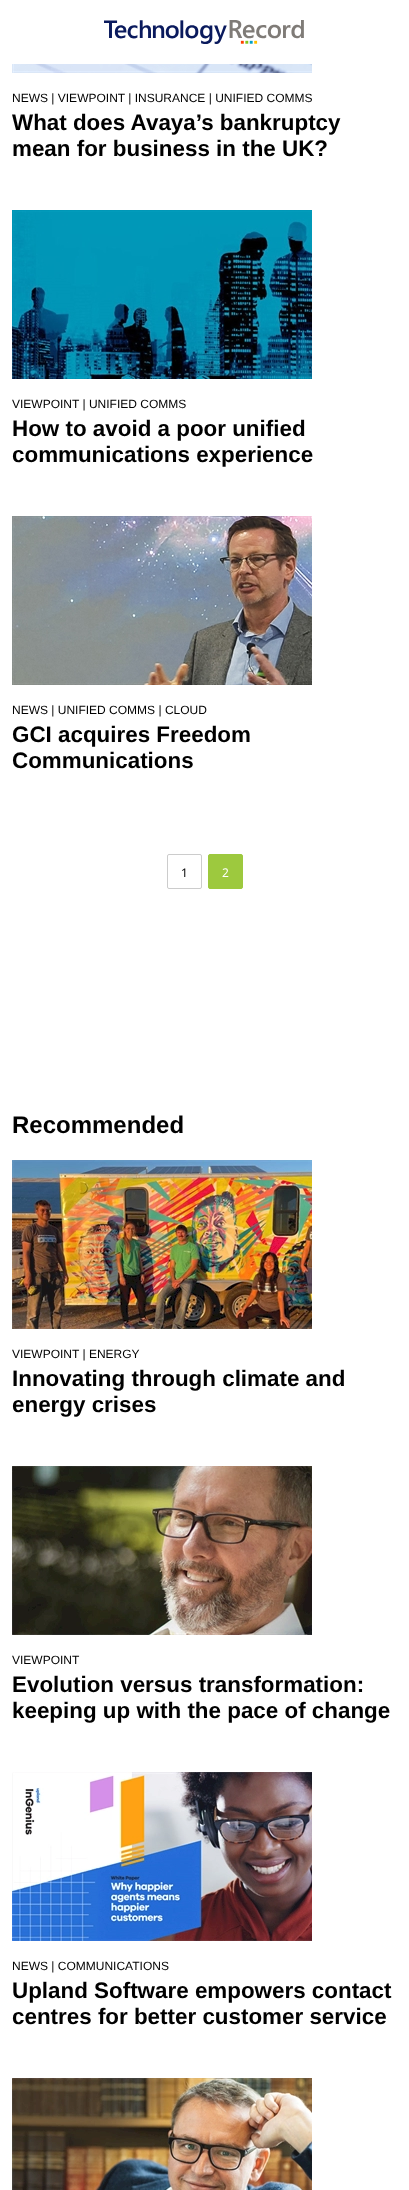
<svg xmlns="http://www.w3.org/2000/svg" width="409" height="2190">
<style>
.a{font:12px Liberation Sans;fill:#000}
.b{font:bold 22.4px Liberation Sans;fill:#000}
.c{font:12px Noto Sans;fill:#000}
.d{font:12px Noto Sans;fill:#fff}
.e{font:bold 24px Liberation Sans;fill:#000}
</style>
<rect width="100%" height="100%" fill="#fff"/>
<image href="1.png" x="104" y="20" width="200" height="24"/>
<image href="2.png" x="12" y="64" width="300" height="9"/>
<image href="3.png" x="12" y="210" width="300" height="169"/>
<image href="4.png" x="12" y="516" width="300" height="169"/>
<rect fill="none" stroke="#ccc" x="167.5" y="854.5" width="34" height="34" rx="1.5"/>
<rect fill="#9dc93e" stroke="#9dc93e" x="208.5" y="854.5" width="34" height="34" rx="1.5"/>
<image href="5.png" x="12" y="1160" width="300" height="169"/>
<image href="6.png" x="12" y="1466" width="300" height="169"/>
<image href="7.png" x="12" y="1772" width="300" height="169"/>
<image href="8.png" x="12" y="2078" width="300" height="112"/>
<text class="a" x="12" y="102">NEWS | VIEWPOINT | INSURANCE | UNIFIED COMMS</text>
<text class="b" x="12" y="130">What does Avaya’s bankruptcy</text>
<text class="b" x="12" y="156">mean for business in the UK?</text>
<text class="a" x="12" y="408">VIEWPOINT | UNIFIED COMMS</text>
<text class="b" x="12" y="436">How to avoid a poor unified</text>
<text class="b" x="12" y="462">communications experience</text>
<text class="a" x="12" y="714">NEWS | UNIFIED COMMS | CLOUD</text>
<text class="b" x="12" y="742">GCI acquires Freedom</text>
<text class="b" x="12" y="768">Communications</text>
<text class="c" x="181" y="877">1</text>
<text class="d" x="222" y="877">2</text>
<text class="e" x="12" y="1133">Recommended</text>
<text class="a" x="12" y="1358">VIEWPOINT | ENERGY</text>
<text class="b" x="12" y="1386">Innovating through climate and</text>
<text class="b" x="12" y="1412">energy crises</text>
<text class="a" x="12" y="1664">VIEWPOINT</text>
<text class="b" x="12" y="1692">Evolution versus transformation:</text>
<text class="b" x="12" y="1718">keeping up with the pace of change</text>
<text class="a" x="12" y="1970">NEWS | COMMUNICATIONS</text>
<text class="b" x="12" y="1998">Upland Software empowers contact</text>
<text class="b" x="12" y="2024">centres for better customer service</text>
</svg>
